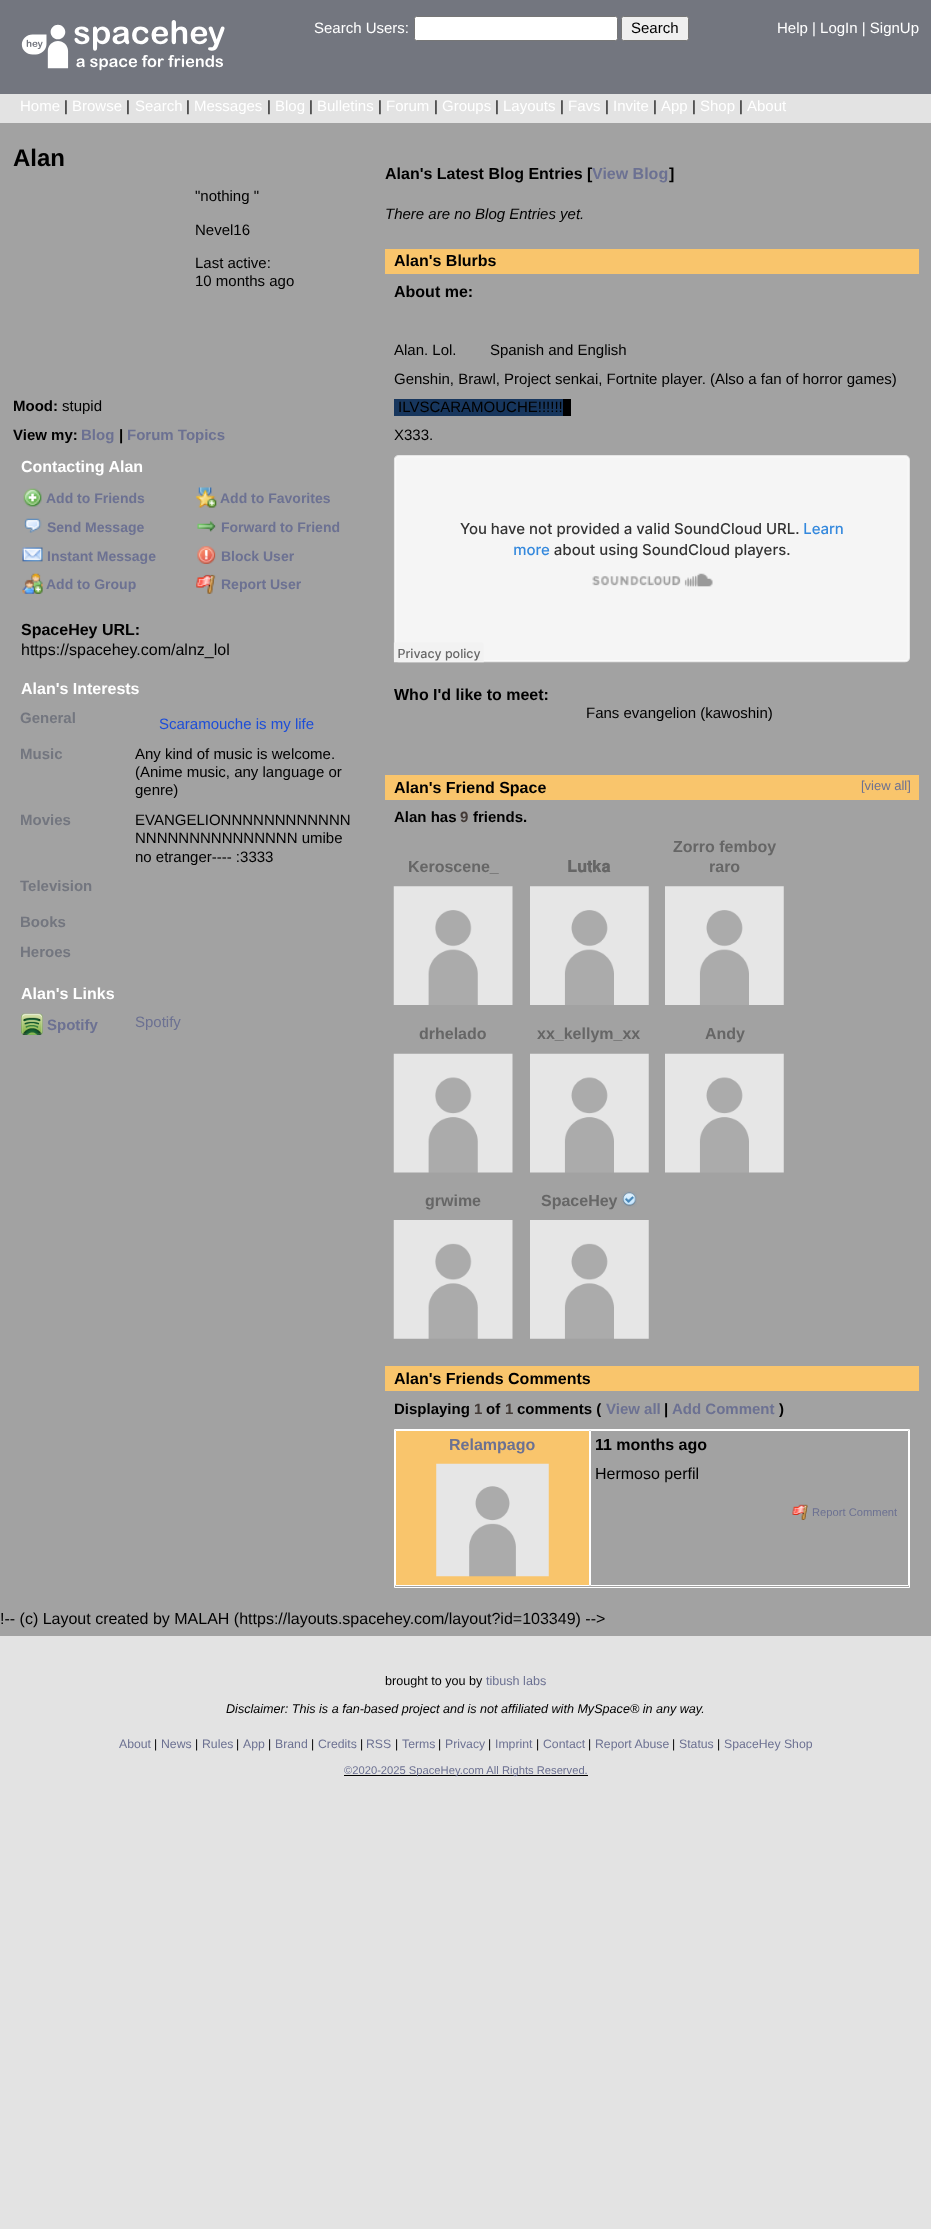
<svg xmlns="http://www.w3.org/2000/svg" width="931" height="2229">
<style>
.a{font:15px Liberation Sans;fill:#fff}
.b{font:15px Liberation Sans;fill:#000}
.c{font:bold 24px Liberation Sans;fill:#000}
.d{font:bold 15px Liberation Sans;fill:#000}
.e{font:bold 15px Liberation Sans;fill:#6c7192}
.f{font:bold 16px Liberation Sans;fill:#fff}
.g{font:bold 14px Liberation Sans;fill:#6c7192}
.h{font:bold 16px Liberation Sans;fill:#000}
.i{font:16px Liberation Sans;fill:#000}
.j{font:bold 15px Liberation Sans;fill:#73767f}
.k{font:15px Liberation Sans;fill:#1d4ed8}
.l{font:15px Liberation Sans;fill:#6c7192}
.m{font:bold 16px Liberation Sans;fill:#6c7192}
.n{font:italic 15px Liberation Sans;fill:#000}
.o{font:13px Liberation Sans;fill:#6c7192}
.p{font:bold 15px Liberation Sans;fill:#423935}
.q{font:bold 16px Liberation Sans;fill:#666}
.r{font:bold 16px FreeSans;fill:#666}
.s{font:11.2px Liberation Sans;fill:#6c7192}
.t{font:12.6px Liberation Sans;fill:#000}
.u{font:12.6px Liberation Sans;fill:#6c7192}
.v{font:italic 12.6px Liberation Sans;fill:#000}
.w{font:12.25px Liberation Sans;fill:#6c7192}
.x{font:12.25px Liberation Sans;fill:#000}
</style>
<rect width="100%" height="100%" fill="#e3e3e3"/>
<path fill="#73767f" d="M0 0h931v94H0z"/>
<image href="1.png" x="21" y="20" width="204" height="51"/>
<rect fill="#fff" stroke="#767676" x="414.5" y="16.5" width="203" height="24" rx="2"/>
<rect fill="#efefef" stroke="#767676" x="621.5" y="16.5" width="67" height="24" rx="2"/>
<path fill="#a2a2a2" d="M0 123h931v1513H0z"/>
<image href="2.png" x="23" y="488" width="19" height="19"/>
<image href="3.png" x="196" y="487" width="21" height="21"/>
<image href="4.png" x="24" y="518" width="18" height="15"/>
<image href="5.png" x="197" y="521" width="19" height="11"/>
<image href="6.png" x="22" y="547" width="21" height="15"/>
<image href="7.png" x="197" y="546" width="19" height="18"/>
<image href="8.png" x="22" y="573" width="21" height="21"/>
<image href="9.png" x="196" y="574" width="20" height="20"/>
<image href="10.png" x="21" y="1013" width="22" height="22"/>
<path fill="#f9c56c" d="M385 249h534v25H385z"/>
<path fill="#17365d" d="M394 399h169v17H394z"/>
<path fill="#000" d="M563 399h8v17H563z"/>
<image href="11.png" x="393" y="455" width="517" height="208"/>
<path fill="#f9c56c" d="M385 775h534v25H385z"/>
<image href="12.png" x="393" y="886" width="120" height="119"/>
<image href="13.png" x="530" y="886" width="119" height="119"/>
<image href="14.png" x="665" y="886" width="119" height="119"/>
<image href="15.png" x="393" y="1053" width="120" height="120"/>
<image href="16.png" x="530" y="1053" width="119" height="120"/>
<image href="16.png" x="665" y="1053" width="119" height="120"/>
<image href="17.png" x="393" y="1220" width="120" height="119"/>
<image href="18.png" x="621" y="1191" width="16" height="16"/>
<image href="19.png" x="530" y="1220" width="119" height="119"/>
<path fill="#f9c56c" d="M385 1366h534v25H385z"/>
<path fill="none" stroke="#fff" d="M394.5 1429.5h515v158H394.5z"/>
<path fill="#f9c56c" stroke="#fff" d="M395.5 1430.5h194v155H395.5z"/>
<image href="20.png" x="436" y="1463" width="113" height="114"/>
<path fill="none" stroke="#fff" d="M590.5 1430.5h318v155H590.5z"/>
<image href="21.png" x="792" y="1504" width="16" height="16"/>
<path fill="#000" d="M344 1775h244v1H344z"/>
<text class="a" x="314" y="33">Search Users:</text>
<text class="b" x="631" y="33">Search</text>
<text class="a" x="777" y="33">Help | LogIn | SignUp</text>
<text class="a" x="20" y="111">Home</text>
<text class="b" x="64" y="111">|</text>
<text class="a" x="72" y="111">Browse</text>
<text class="b" x="126" y="111">|</text>
<text class="a" x="135" y="111">Search</text>
<text class="b" x="186" y="111">|</text>
<text class="a" x="194" y="111">Messages</text>
<text class="b" x="267" y="111">|</text>
<text class="a" x="275" y="111">Blog</text>
<text class="b" x="309" y="111">|</text>
<text class="a" x="317" y="111">Bulletins</text>
<text class="b" x="378" y="111">|</text>
<text class="a" x="386" y="111">Forum</text>
<text class="b" x="434" y="111">|</text>
<text class="a" x="442" y="111">Groups</text>
<text class="b" x="495" y="111">|</text>
<text class="a" x="503" y="111">Layouts</text>
<text class="b" x="560" y="111">|</text>
<text class="a" x="568" y="111">Favs</text>
<text class="b" x="605" y="111">|</text>
<text class="a" x="613" y="111">Invite</text>
<text class="b" x="653" y="111">|</text>
<text class="a" x="661" y="111">App</text>
<text class="b" x="692" y="111">|</text>
<text class="a" x="700" y="111">Shop</text>
<text class="b" x="739" y="111">|</text>
<text class="a" x="747" y="111">About</text>
<text class="c" x="13" y="166">Alan</text>
<text class="b" x="195" y="201">"nothing "</text>
<text class="b" x="195" y="235">Nevel16</text>
<text class="b" x="195" y="268">Last active:</text>
<text class="b" x="195" y="286">10 months ago</text>
<text class="d" x="13" y="411">Mood:</text>
<text class="b" x="62" y="411">stupid</text>
<text class="d" x="13" y="440">View my:</text>
<text class="e" x="81" y="440">Blog</text>
<text class="d" x="119" y="440">|</text>
<text class="e" x="127" y="440">Forum Topics</text>
<text class="f" x="21" y="472">Contacting Alan</text>
<text class="g" x="46" y="503">Add to Friends</text>
<text class="g" x="220" y="503">Add to Favorites</text>
<text class="g" x="47" y="532">Send Message</text>
<text class="g" x="221" y="532">Forward to Friend</text>
<text class="g" x="47" y="561">Instant Message</text>
<text class="g" x="221" y="561">Block User</text>
<text class="g" x="46" y="589">Add to Group</text>
<text class="g" x="221" y="589">Report User</text>
<text class="h" x="21" y="635">SpaceHey URL:</text>
<text class="i" x="21" y="655">https://spacehey.com/alnz_lol</text>
<text class="f" x="21" y="694">Alan's Interests</text>
<text class="j" x="20" y="723">General</text>
<text class="k" x="159" y="729">Scaramouche is my life</text>
<text class="j" x="20" y="759">Music</text>
<text class="b" x="135" y="759">Any kind of music is welcome.</text>
<text class="b" x="135" y="777">(Anime music, any language or</text>
<text class="b" x="135" y="795">genre)</text>
<text class="j" x="20" y="825">Movies</text>
<text class="b" x="135" y="825">EVANGELIONNNNNNNNNNNN</text>
<text class="b" x="135" y="843">NNNNNNNNNNNNNNN umibe</text>
<text class="b" x="135" y="862">no etranger---- :3333</text>
<text class="j" x="20" y="891">Television</text>
<text class="j" x="20" y="927">Books</text>
<text class="j" x="20" y="957">Heroes</text>
<text class="f" x="21" y="999">Alan's Links</text>
<text class="e" x="47" y="1030">Spotify</text>
<text class="l" x="135" y="1027">Spotify</text>
<text class="h" x="385" y="179">Alan's Latest Blog Entries [</text>
<text class="m" x="592" y="179">View Blog</text>
<text class="h" x="669" y="179">]</text>
<text class="n" x="385" y="219">There are no Blog Entries yet.</text>
<text class="h" x="394" y="266">Alan's Blurbs</text>
<text class="h" x="394" y="297">About me:</text>
<text class="b" xml:space="preserve" x="394" y="355">Alan. Lol.        Spanish and English</text>
<text class="b" x="394" y="384">Genshin, Brawl, Project senkai, Fortnite player. (Also a fan of horror games)</text>
<text class="b" x="398" y="412">ILVSCARAMOUCHE!!!!!!</text>
<text class="b" x="394" y="440">X333.</text>
<text class="h" x="394" y="700">Who I'd like to meet:</text>
<text class="b" x="586" y="718">Fans evangelion (kawoshin)</text>
<text class="h" x="394" y="793">Alan's Friend Space</text>
<text class="o" x="861" y="790">[view all]</text>
<text class="d" x="394" y="822">Alan has</text>
<text class="p" x="460" y="822">9</text>
<text class="d" x="473" y="822">friends.</text>
<text class="q" x="408" y="872">Keroscene_</text>
<text class="r" x="567" y="872">𝐋𝐮𝐭𝐤𝐚</text>
<text class="q" x="673" y="852">Zorro femboy</text>
<text class="q" x="709" y="872">raro</text>
<text class="q" x="419" y="1039">drhelado</text>
<text class="q" x="537" y="1039">xx_kellym_xx</text>
<text class="q" x="705" y="1039">Andy</text>
<text class="q" x="425" y="1206">grwime</text>
<text class="q" x="541" y="1206">SpaceHey</text>
<text class="h" x="394" y="1384">Alan's Friends Comments</text>
<text class="d" x="394" y="1414">Displaying</text>
<text class="p" x="474" y="1414">1</text>
<text class="d" x="486" y="1414">of</text>
<text class="p" x="505" y="1414">1</text>
<text class="d" x="517" y="1414">comments (</text>
<text class="e" x="606" y="1414">View all</text>
<text class="d" x="664" y="1414">|</text>
<text class="e" x="672" y="1414">Add Comment</text>
<text class="d" x="779" y="1414">)</text>
<text class="m" x="449" y="1450">Relampago</text>
<text class="h" x="595" y="1450">11 months ago</text>
<text class="i" x="595" y="1479">Hermoso perfil</text>
<text class="s" x="812" y="1516">Report Comment</text>
<text class="i" x="0" y="1624">!-- (c) Layout created by MALAH (https://layouts.spacehey.com/layout?id=103349) --&gt;</text>
<text class="t" x="385" y="1685">brought to you by</text>
<text class="u" x="486" y="1685">tibush labs</text>
<text class="v" x="226" y="1713">Disclaimer: This is a fan-based project and is not affiliated with MySpace® in any way.</text>
<text class="w" x="119" y="1748">About</text>
<text class="x" x="154" y="1748">|</text>
<text class="w" x="161" y="1748">News</text>
<text class="x" x="195" y="1748">|</text>
<text class="w" x="202" y="1748">Rules</text>
<text class="x" x="236" y="1748">|</text>
<text class="w" x="243" y="1748">App</text>
<text class="x" x="268" y="1748">|</text>
<text class="w" x="275" y="1748">Brand</text>
<text class="x" x="311" y="1748">|</text>
<text class="w" x="318" y="1748">Credits</text>
<text class="x" x="360" y="1748">|</text>
<text class="w" x="366" y="1748">RSS</text>
<text class="x" x="395" y="1748">|</text>
<text class="w" x="402" y="1748">Terms</text>
<text class="x" x="438" y="1748">|</text>
<text class="w" x="445" y="1748">Privacy</text>
<text class="x" x="488" y="1748">|</text>
<text class="w" x="495" y="1748">Imprint</text>
<text class="x" x="536" y="1748">|</text>
<text class="w" x="543" y="1748">Contact</text>
<text class="x" x="588" y="1748">|</text>
<text class="w" x="595" y="1748">Report Abuse</text>
<text class="x" x="672" y="1748">|</text>
<text class="w" x="679" y="1748">Status</text>
<text class="x" x="717" y="1748">|</text>
<text class="w" x="724" y="1748">SpaceHey Shop</text>
<text class="s" x="344" y="1774">©2020-2025 SpaceHey.com All Rights Reserved.</text>
</svg>
